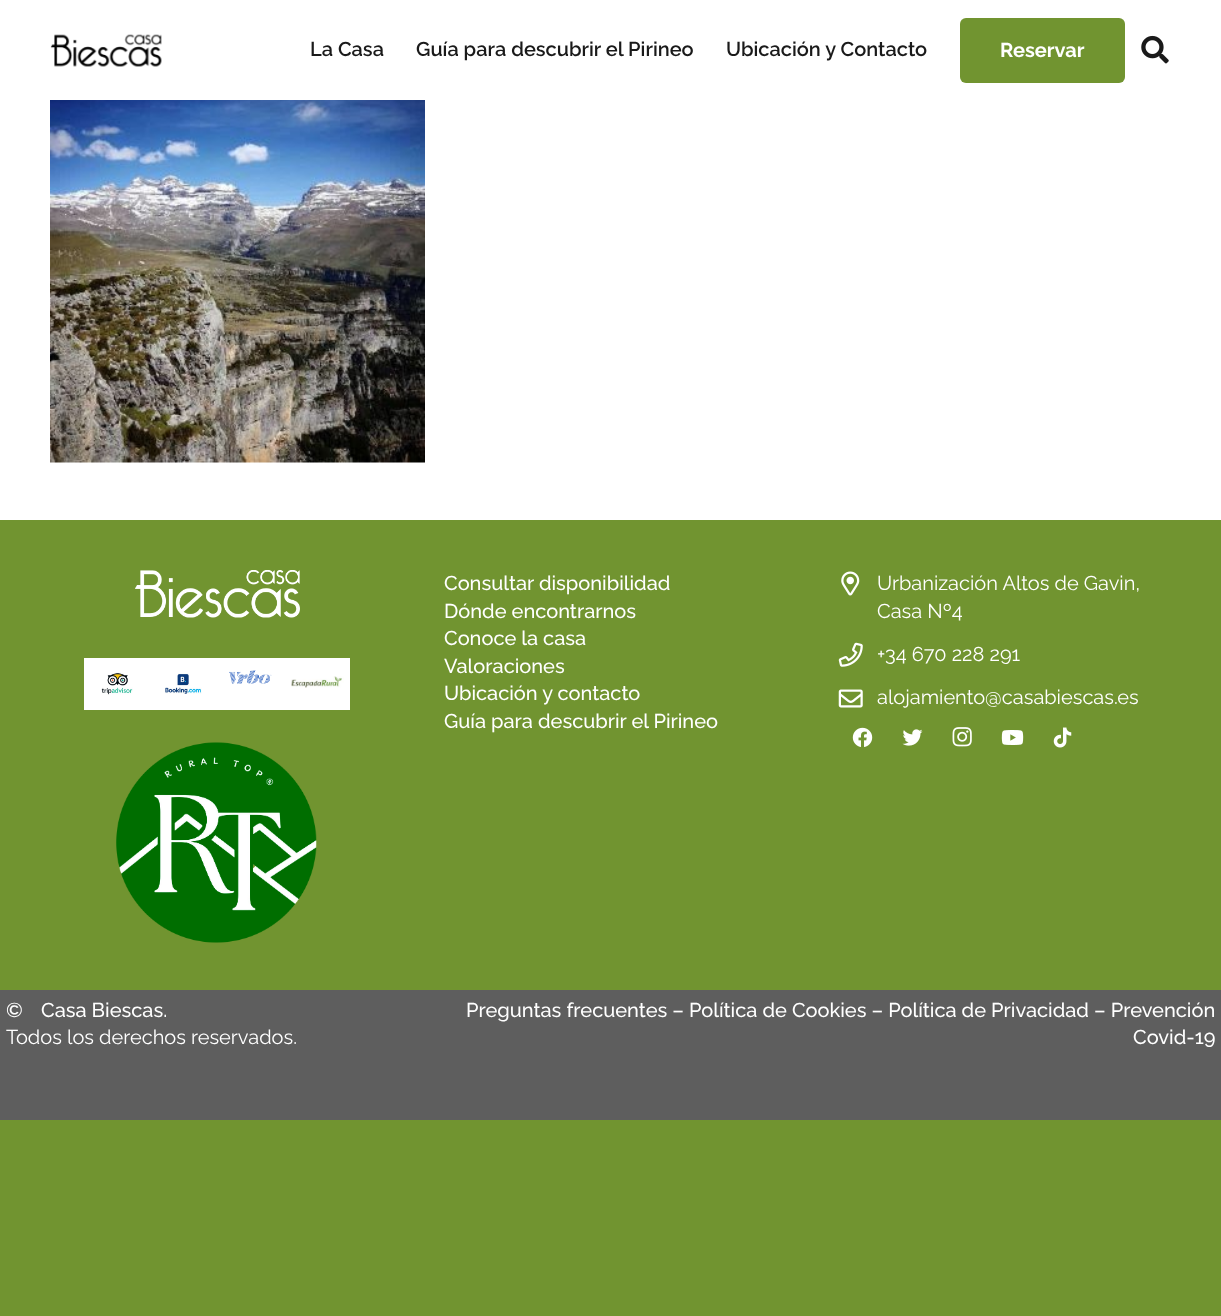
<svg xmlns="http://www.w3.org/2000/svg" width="1221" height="1316">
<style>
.a{font:600 20px Raleway;fill:#1a1a1a}
.b{font:bold 20px Raleway;fill:#fff}
.c{font:500 20px Raleway;fill:#fff}
.d{font:20px Raleway;fill:#fff}
</style>
<rect width="100%" height="100%" fill="#719430"/>
<path fill="#fff" d="M0 0h1221v520H0z"/>
<image href="1.png" x="50" y="34" width="112" height="33"/>
<rect fill="#719430" x="960" y="18" width="165" height="65" rx="6"/>
<image href="2.png" x="1141" y="35" width="28" height="29"/>
<image href="3.png" x="50" y="100" width="375" height="363"/>
<image href="4.png" x="135" y="570" width="165" height="48"/>
<path fill="#fff" d="M84 658h266v52H84z"/>
<image href="5.png" x="101" y="672" width="32" height="23"/>
<image href="6.png" x="165" y="673" width="37" height="21"/>
<image href="7.png" x="229" y="670" width="43" height="14"/>
<image href="8.png" x="291" y="676" width="53" height="12"/>
<image href="9.png" x="116" y="742" width="201" height="201"/>
<image href="10.png" x="841" y="571" width="19" height="25"/>
<image href="11.png" x="838" y="642" width="25" height="25"/>
<image href="12.png" x="838" y="689" width="25" height="19"/>
<image href="13.png" x="852" y="727" width="21" height="20"/>
<image href="14.png" x="902" y="729" width="21" height="17"/>
<image href="15.png" x="952" y="727" width="20" height="20"/>
<image href="16.png" x="1001" y="730" width="23" height="15"/>
<image href="17.png" x="1053" y="727" width="19" height="21"/>
<path fill="#5e5e5e" d="M0 990h1221v130H0z"/>
<text class="a" x="310" y="56">La Casa</text>
<text class="a" x="416" y="56">Guía para descubrir el Pirineo</text>
<text class="a" x="726" y="56">Ubicación y Contacto</text>
<text class="b" x="1000" y="57">Reservar</text>
<text class="c" x="444" y="590">Consultar disponibilidad</text>
<text class="c" x="444" y="618">Dónde encontrarnos</text>
<text class="c" x="444" y="645">Conoce la casa</text>
<text class="c" x="444" y="673">Valoraciones</text>
<text class="c" x="444" y="700">Ubicación y contacto</text>
<text class="c" x="444" y="728">Guía para descubrir el Pirineo</text>
<text class="d" x="877" y="590">Urbanización Altos de Gavin,</text>
<text class="d" x="877" y="618">Casa Nº4</text>
<text class="d" x="877" y="661">+34 670 228 291</text>
<text class="d" x="877" y="704">alojamiento@casabiescas.es</text>
<text class="c" x="6" y="1017">©</text>
<text class="c" x="41" y="1017">Casa Biescas.</text>
<text class="d" x="6" y="1044">Todos los derechos reservados.</text>
<text class="c" x="466" y="1017">Preguntas frecuentes – Política de Cookies – Política de Privacidad – Prevención</text>
<text class="c" x="1133" y="1044">Covid-19</text>
</svg>
